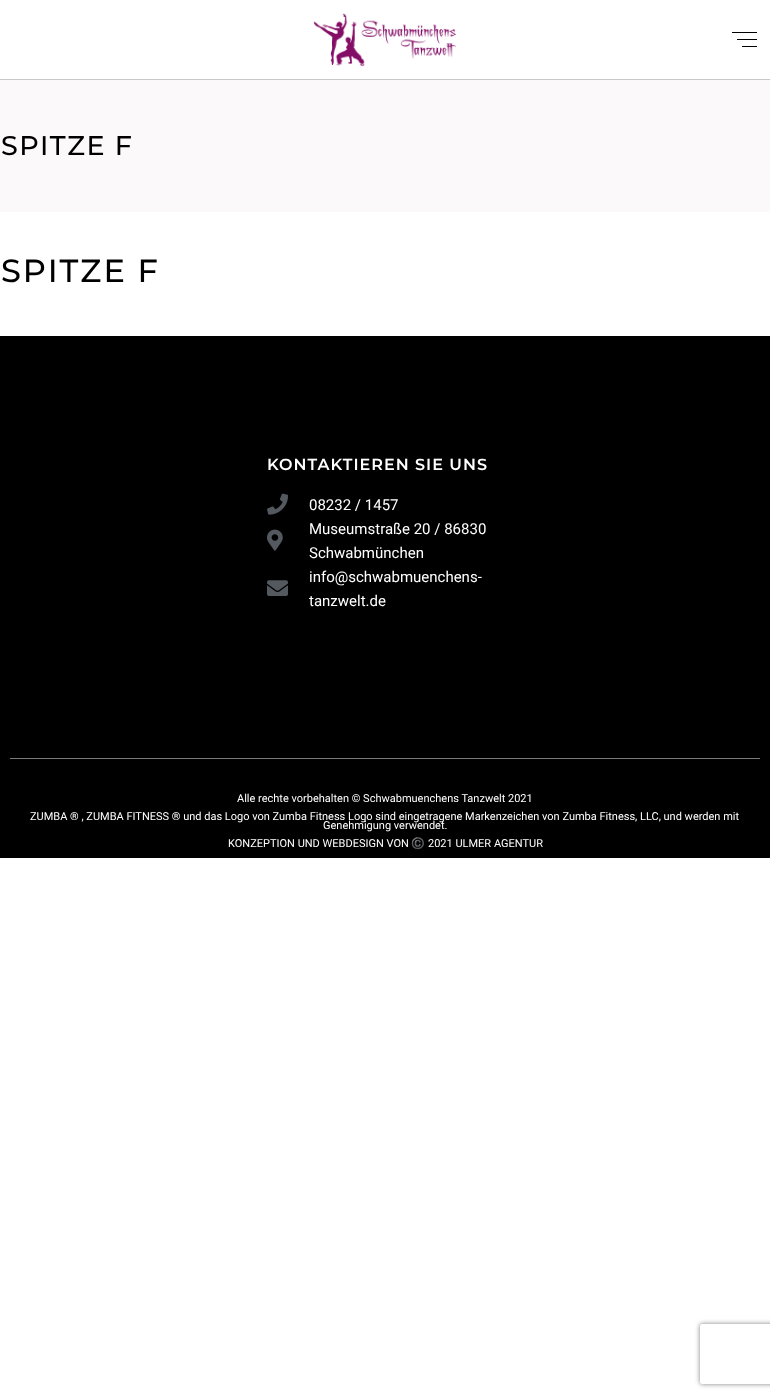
<svg xmlns="http://www.w3.org/2000/svg" width="770" height="1398">
<style>
.a{font:500 27px Montserrat;letter-spacing:1.5px;fill:#000}
.b{font:500 32px Montserrat;letter-spacing:2px;fill:#000}
.c{font:600 16px Montserrat;letter-spacing:1px;fill:#fff}
.d{font:15px Roboto;fill:#fff}
.e{font:11px Roboto;fill:#fff}
.f{font:11px Noto Color Emoji;fill:#fff}
</style>
<defs>
<clipPath id="clip1"><path d="M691 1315h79v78h-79zm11 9h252c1 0 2 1 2 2v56c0 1-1 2-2 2h-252c-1 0-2-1-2-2v-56c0-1 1-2 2-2z" clip-rule="evenodd"/></clipPath>
</defs>
<rect width="100%" height="100%" fill="#fff"/>
<path fill="#c8c8c8" d="M0 79h770v1H0z"/>
<image href="1.png" x="313" y="13" width="144" height="54"/>
<path fill="#000" d="M732 32h25v1H732z"/>
<path fill="#000" d="M737 39h20v1H737z"/>
<path fill="#000" d="M742 46h15v1H742z"/>
<path fill="#fbf9f9" d="M0 80h770v132H0z"/>
<path fill="#000" d="M0 336h770v522H0z"/>
<image href="2.png" x="267" y="493" width="21" height="22"/>
<image href="3.png" x="267" y="529" width="16" height="22"/>
<image href="4.png" x="267" y="580" width="21" height="16"/>
<path fill="#7a7a7a" d="M10 758h750v1H10z"/>
<g clip-path="url(#clip1)">
<rect fill="#808080" filter="blur(2.5px)" x="700" y="1324" width="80" height="60" rx="2"/>
</g>
<text class="a" x="1" y="155">SPITZE F</text>
<text class="b" x="1" y="282">SPITZE F</text>
<text class="c" x="267" y="470">KONTAKTIEREN SIE UNS</text>
<text class="d" x="309" y="510">08232 / 1457</text>
<text class="d" x="309" y="534">Museumstraße 20 / 86830</text>
<text class="d" x="309" y="558">Schwabmünchen</text>
<text class="d" x="309" y="582">info@schwabmuenchens-</text>
<text class="d" x="309" y="606">tanzwelt.de</text>
<text class="e" x="237" y="802">Alle rechte vorbehalten © Schwabmuenchens Tanzwelt 2021</text>
<text class="e" x="30" y="820">ZUMBA ® , ZUMBA FITNESS ® und das Logo von Zumba Fitness Logo sind eingetragene Markenzeichen von Zumba Fitness, LLC, und werden mit</text>
<text class="e" x="323" y="829">Genehmigung verwendet.</text>
<text class="e" x="228" y="847">KONZEPTION UND WEBDESIGN VON</text>
<text class="f" x="411" y="847">©️</text>
<text class="e" x="428" y="847">2021 ULMER AGENTUR</text>
</svg>
